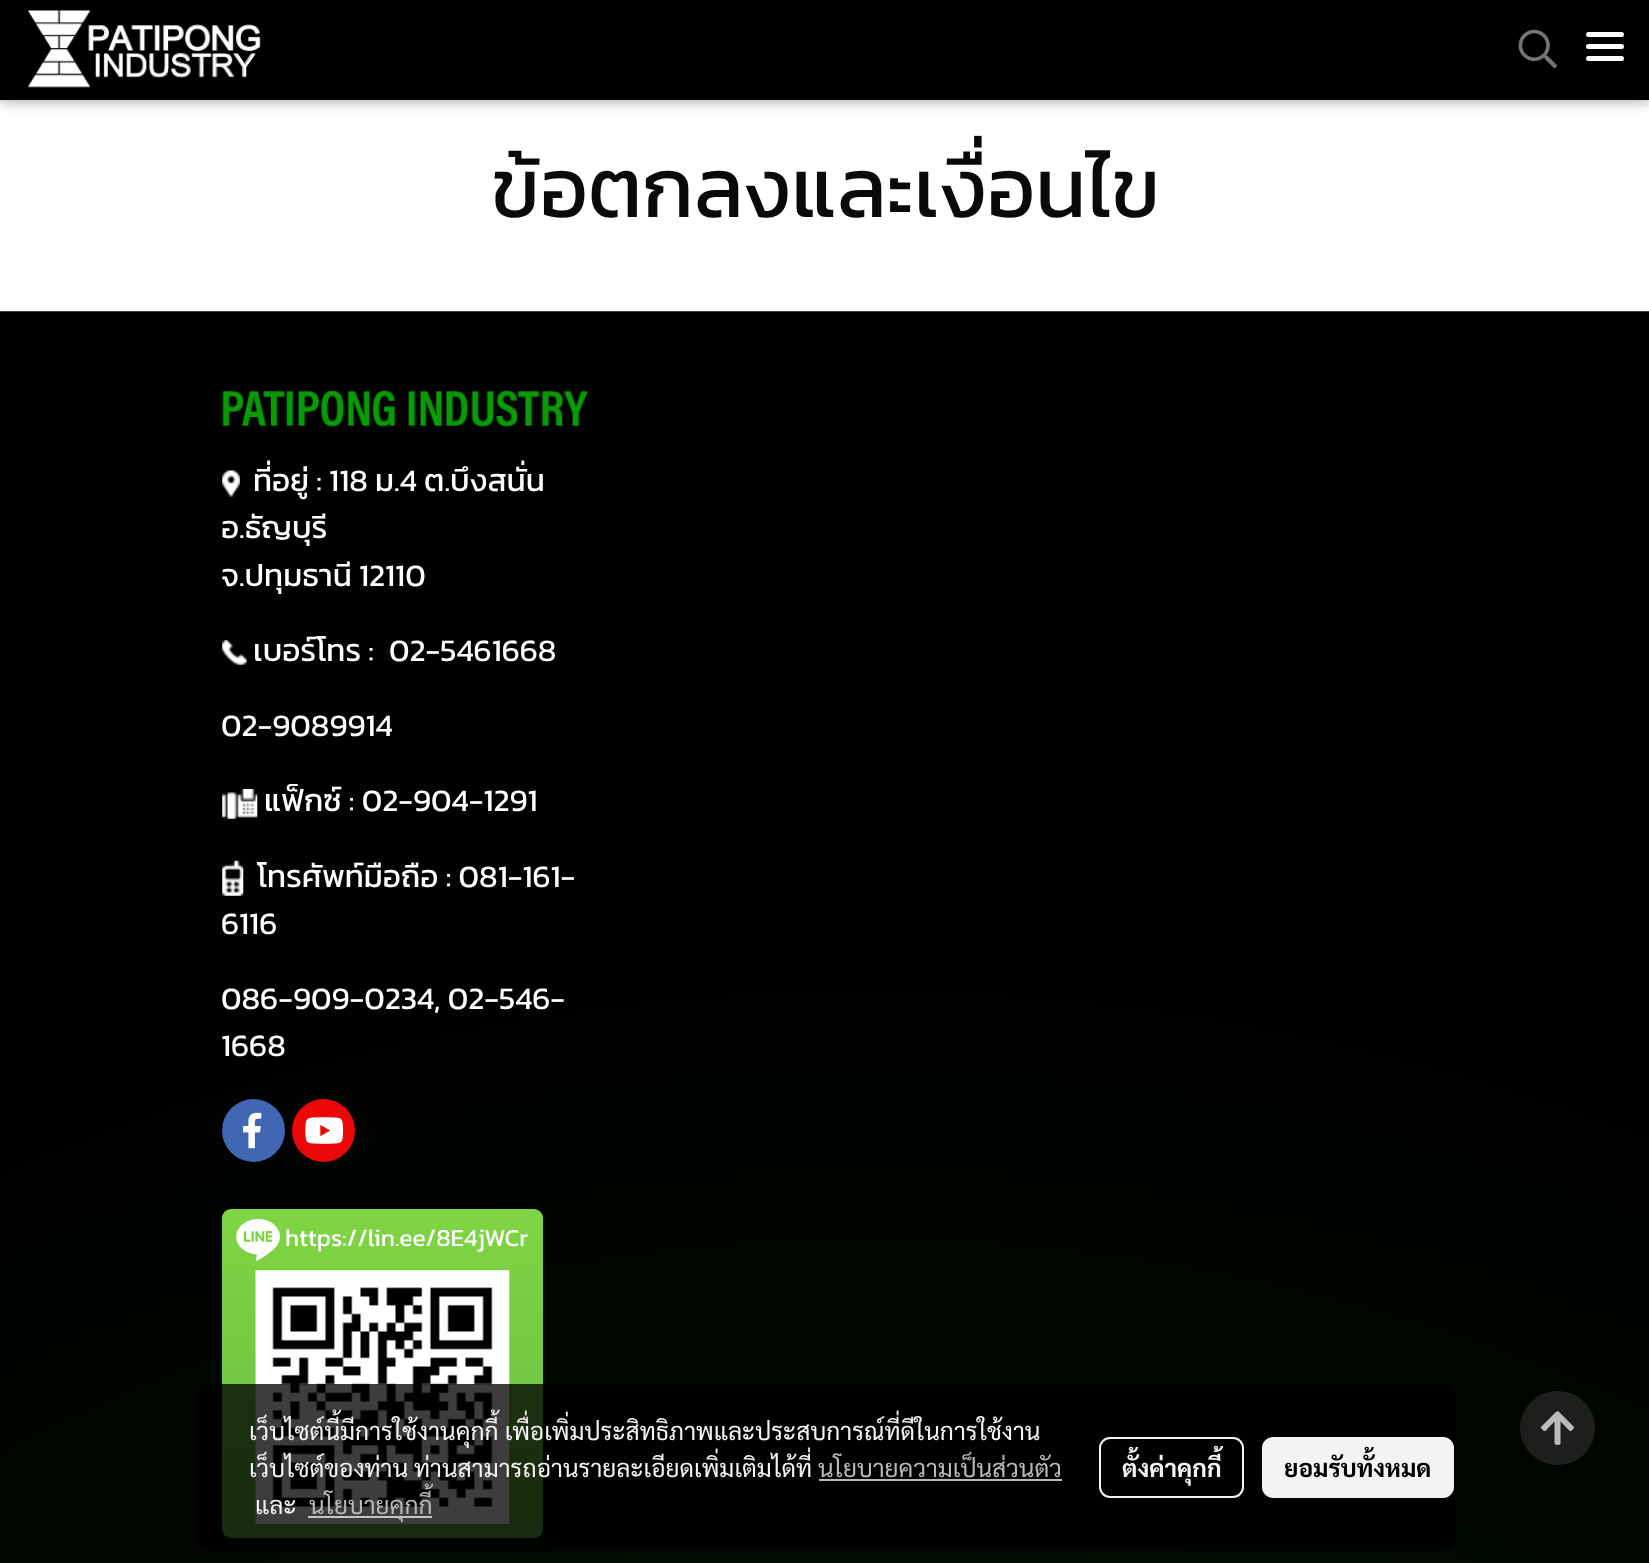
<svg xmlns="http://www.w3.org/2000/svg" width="1649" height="1563">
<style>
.a{font:84px Kanit;fill:#0a0a0a}
.b{font:31.5px Kanit;fill:#fff}
.c{font:24.5px Kanit;fill:#fff}
.d{font:24.5px Sarabun;fill:#f3f3f3}
.e{font:24.5px Sarabun;fill:#b8b9b8}
.f{font:bold 24.5px Sarabun;fill:#f3f3f3}
.g{font:bold 24.5px Sarabun;fill:#000}
</style>
<defs>
<linearGradient id="g1" gradientUnits="userSpaceOnUse" x1="382" y1="1209" x2="382" y2="1538"><stop offset="0" stop-color="#80d544"/><stop offset="1" stop-color="#65bc3e"/></linearGradient>
</defs>
<rect width="100%" height="100%" fill="#fff"/>
<path fill="#0000001f" filter="blur(9px)" d="M0 4h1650v99H0z"/>
<path fill="#00000029" filter="blur(4.5px)" d="M0 4h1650v99H0z"/>
<path fill="#000" d="M0 0h1649v100H0z"/>
<image href="1.png" x="28" y="10" width="233" height="78"/>
<image href="2.png" x="1518" y="29" width="39" height="40"/>
<rect fill="#fff" x="1586" y="44" width="38" height="5" rx="2.5"/>
<rect fill="#fff" x="1586" y="32" width="38" height="5" rx="2.5"/>
<rect fill="#fff" x="1586" y="56" width="38" height="5" rx="2.5"/>
<image href="3.png" x="0" y="311" width="1649" height="1252"/>
<image href="4.png" x="222" y="390" width="366" height="37"/>
<image href="5.png" x="222" y="470" width="18" height="27"/>
<image href="6.png" x="222" y="640" width="25" height="25"/>
<image href="7.png" x="222" y="789" width="36" height="30"/>
<image href="8.png" x="222" y="860" width="22" height="36"/>
<circle fill="#4267b2" cx="253.5" cy="1130.5" r="31.5"/>
<image href="9.png" x="243" y="1112" width="19" height="37"/>
<circle fill="#eb0808" cx="323.5" cy="1130.5" r="31.5"/>
<image href="10.png" x="305" y="1117" width="39" height="27"/>
<rect fill="url(#g1)" x="222" y="1209" width="321" height="329" rx="9"/>
<image href="11.png" x="236" y="1219" width="44" height="42"/>
<image href="12.png" x="255" y="1270" width="255" height="254"/>
<rect fill="#000000c2" x="196" y="1384" width="1260" height="167" rx="14"/>
<path fill="#b8b9b8" d="M819 1479h243v2H819z"/>
<path fill="#c5c5c5" d="M308 1516h124v2H308z"/>
<rect fill="none" stroke="#f2f3f2" stroke-width="2" x="1100" y="1438" width="143" height="59" rx="10"/>
<rect fill="#f2f3f2" stroke="#f2f3f2" stroke-width="2" x="1263" y="1438" width="190" height="59" rx="10"/>
<path fill="#1e1f1d" d="M1558 1391c-21 0-38 16-38 37c0 21 17 37 38 37c20 0 37-16 37-37c0-21-17-37-37-37z"/>
<image href="13.png" x="1541" y="1411" width="33" height="34"/>
<text class="a" x="491" y="217">ข้อตกลงและเงื่อนไข</text>
<text class="b" x="253" y="491">ที่อยู่ : 118 ม.4 ต.บึงสนั่น</text>
<text class="b" x="221" y="538">อ.ธัญบุรี</text>
<text class="b" x="221" y="586">จ.ปทุมธานี 12110</text>
<text class="b" x="253" y="661">เบอร์โทร :</text>
<text class="b" x="389" y="661">02-5461668</text>
<text class="b" x="221" y="736">02-9089914</text>
<text class="b" x="264" y="811">แฟ็กซ์ : 02-904-1291</text>
<text class="b" x="257" y="887">โทรศัพท์มือถือ : 081-161-</text>
<text class="b" x="221" y="934">6116</text>
<text class="b" x="221" y="1009">086-909-0234, 02-546-</text>
<text class="b" x="221" y="1056">1668</text>
<text class="c" x="285" y="1246">https://lin.ee/8E4jWCr</text>
<text class="d" x="249" y="1440">เว็บไซต์นี้มีการใช้งานคุกกี้ เพื่อเพิ่มประสิทธิภาพและประสบการณ์ที่ดีในการใช้งาน</text>
<text class="d" x="249" y="1477">เว็บไซต์ของท่าน</text>
<text class="d" x="414" y="1477">ท่านสามารถอ่านรายละเอียดเพิ่มเติมได้ที่</text>
<text class="e" x="818" y="1477">นโยบายความเป็นส่วนตัว</text>
<text class="d" x="255" y="1514">และ</text>
<text class="e" x="309" y="1514">นโยบายคุกกี้</text>
<text class="f" x="1122" y="1477">ตั้งค่าคุกกี้</text>
<text class="g" x="1284" y="1477">ยอมรับทั้งหมด</text>
</svg>
